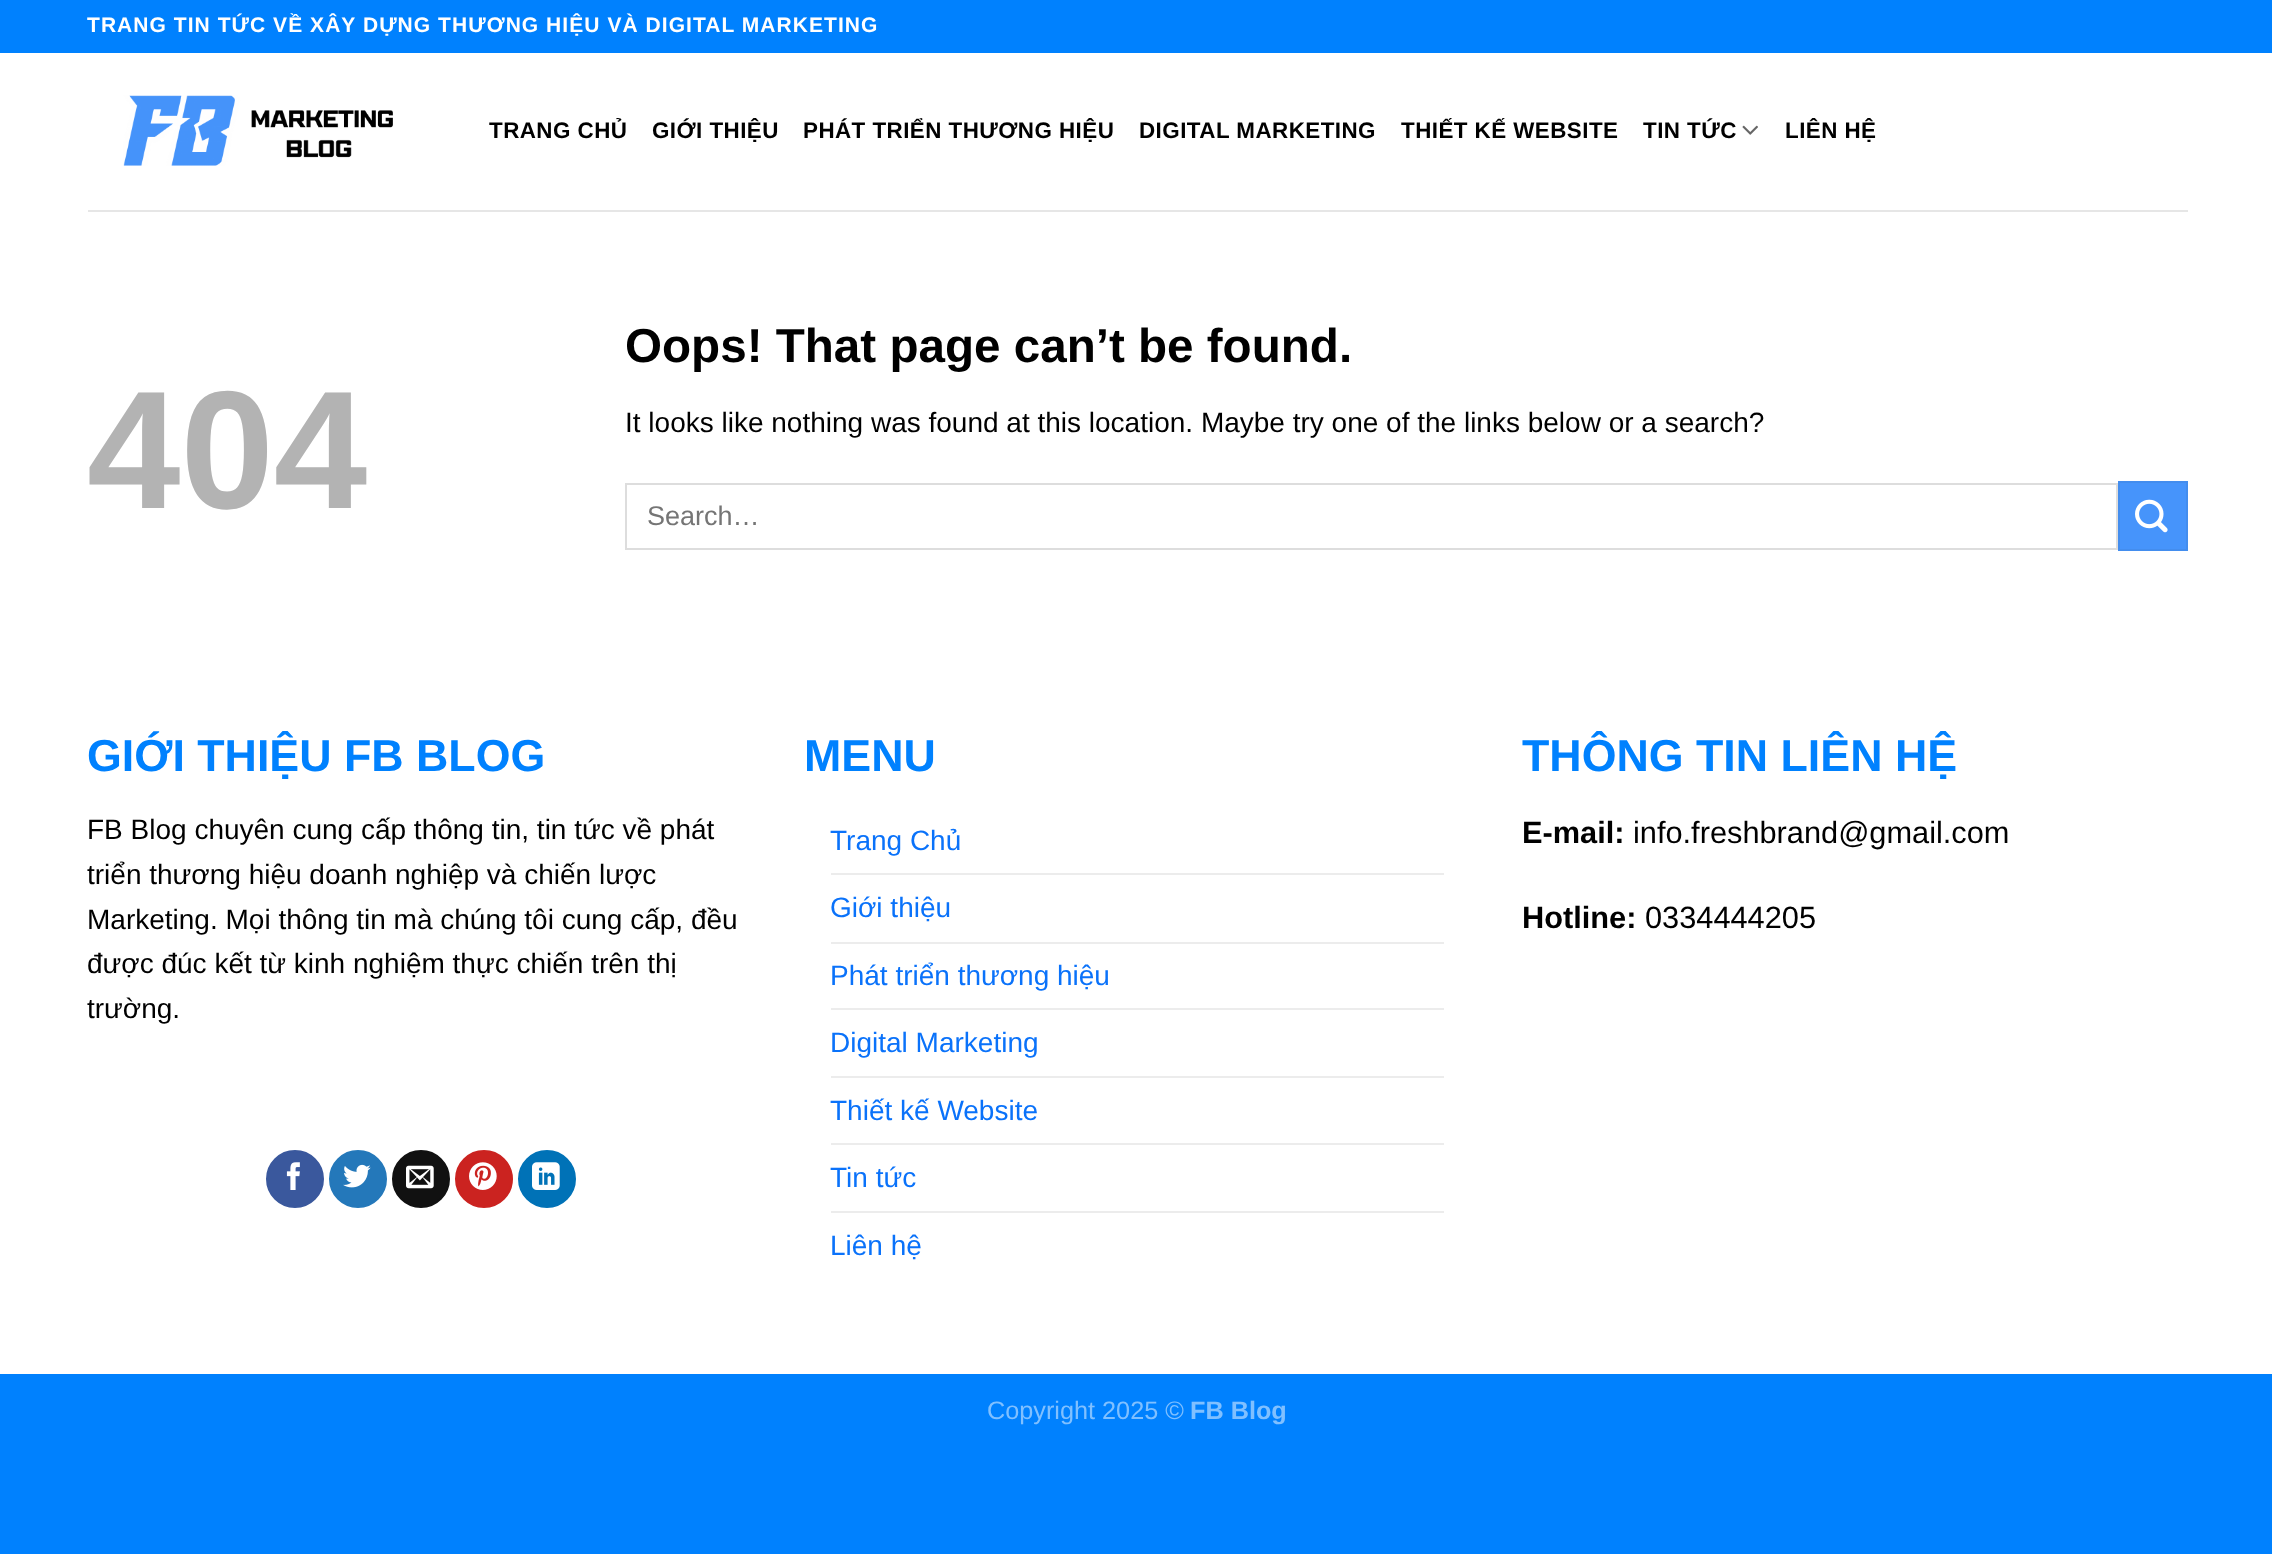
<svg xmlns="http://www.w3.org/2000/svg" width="2272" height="1554">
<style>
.a{font:bold 21px Liberation Sans;letter-spacing:1.05px;fill:#fff}
.b{font:bold 22.4px Liberation Sans;letter-spacing:0.45px;fill:#000}
.c{font:bold 168px Liberation Sans;fill:#b3b3b3}
.d{font:bold 47.6px Liberation Sans;fill:#000}
.e{font:28px Liberation Sans;fill:#000}
.f{font:27px Liberation Sans;fill:#757575}
.g{font:bold 44.75px Liberation Sans;fill:#0081fe}
.h{font:28px Liberation Sans;fill:#0a72fa}
.i{font:bold 30.75px Liberation Sans;fill:#000}
.j{font:30.75px Liberation Sans;fill:#000}
.k{font:25.25px Liberation Sans;fill:#80c0ff}
.l{font:bold 25.25px Liberation Sans;fill:#80c0ff}
</style>
<rect width="100%" height="100%" fill="#0081fe"/>
<path fill="#fff" d="M0 53h2272v1321H0z"/>
<image href="1.png" x="123" y="95" width="270" height="71"/>
<image href="2.png" x="1742" y="125" width="16" height="10"/>
<path fill="#e6e6e6" d="M88 210h2100v2H88z"/>
<path fill="none" stroke="#ddd" stroke-width="2" d="M626 484h1491v65H626z"/>
<path fill="#4694fb" stroke="#438dee" stroke-width="2" d="M2119 482h68v68H2119z"/>
<image href="3.png" x="2135" y="499" width="33" height="34"/>
<circle fill="#3a589d" stroke="#3a589d" stroke-width="2" cx="295" cy="1179" r="28"/>
<image href="4.png" x="286" y="1162" width="14" height="28"/>
<circle fill="#2478ba" stroke="#2478ba" stroke-width="2" cx="358" cy="1179" r="28"/>
<image href="5.png" x="343" y="1164" width="28" height="24"/>
<circle fill="#111" stroke="#111" stroke-width="2" cx="421" cy="1179" r="28"/>
<image href="6.png" x="406" y="1165" width="28" height="24"/>
<circle fill="#cb2320" stroke="#cb2320" stroke-width="2" cx="484" cy="1179" r="28"/>
<image href="7.png" x="469" y="1162" width="28" height="28"/>
<circle fill="#0072b7" stroke="#0072b7" stroke-width="2" cx="547" cy="1179" r="28"/>
<image href="8.png" x="532" y="1162" width="28" height="28"/>
<path fill="#ececec" d="M831 873h613v2H831z"/>
<path fill="#ececec" d="M831 942h613v2H831z"/>
<path fill="#ececec" d="M831 1008h613v2H831z"/>
<path fill="#ececec" d="M831 1076h613v2H831z"/>
<path fill="#ececec" d="M831 1143h613v2H831z"/>
<path fill="#ececec" d="M831 1211h613v2H831z"/>
<text class="a" x="87" y="32">TRANG TIN TỨC VỀ XÂY DỰNG THƯƠNG HIỆU VÀ DIGITAL MARKETING</text>
<text class="b" x="489" y="138">TRANG CHỦ</text>
<text class="b" x="652" y="138">GIỚI THIỆU</text>
<text class="b" x="803" y="138">PHÁT TRIỂN THƯƠNG HIỆU</text>
<text class="b" x="1139" y="138">DIGITAL MARKETING</text>
<text class="b" x="1401" y="138">THIẾT KẾ WEBSITE</text>
<text class="b" x="1643" y="138">TIN TỨC</text>
<text class="b" x="1785" y="138">LIÊN HỆ</text>
<text class="c" x="87" y="508">404</text>
<text class="d" x="625" y="362">Oops! That page can’t be found.</text>
<text class="e" x="625" y="432">It looks like nothing was found at this location. Maybe try one of the links below or a search?</text>
<text class="f" x="647" y="525">Search…</text>
<text class="g" x="87" y="771">GIỚI THIỆU FB BLOG</text>
<text class="e" x="87" y="839">FB Blog chuyên cung cấp thông tin, tin tức về phát</text>
<text class="e" x="87" y="884">triển thương hiệu doanh nghiệp và chiến lược</text>
<text class="e" x="87" y="929">Marketing. Mọi thông tin mà chúng tôi cung cấp, đều</text>
<text class="e" x="87" y="973">được đúc kết từ kinh nghiệm thực chiến trên thị</text>
<text class="e" x="87" y="1018">trường.</text>
<text class="g" x="804" y="771">MENU</text>
<text class="h" x="830" y="850">Trang Chủ</text>
<text class="h" x="830" y="917">Giới thiệu</text>
<text class="h" x="830" y="985">Phát triển thương hiệu</text>
<text class="h" x="830" y="1052">Digital Marketing</text>
<text class="h" x="830" y="1120">Thiết kế Website</text>
<text class="h" x="830" y="1187">Tin tức</text>
<text class="h" x="830" y="1255">Liên hệ</text>
<text class="g" x="1522" y="771">THÔNG TIN LIÊN HỆ</text>
<text class="i" x="1522" y="843">E-mail:</text>
<text class="j" x="1633" y="843">info.freshbrand@gmail.com</text>
<text class="i" x="1522" y="928">Hotline:</text>
<text class="j" x="1645" y="928">0334444205</text>
<text class="k" x="987" y="1419">Copyright 2025 ©</text>
<text class="l" x="1190" y="1419">FB Blog</text>
</svg>
